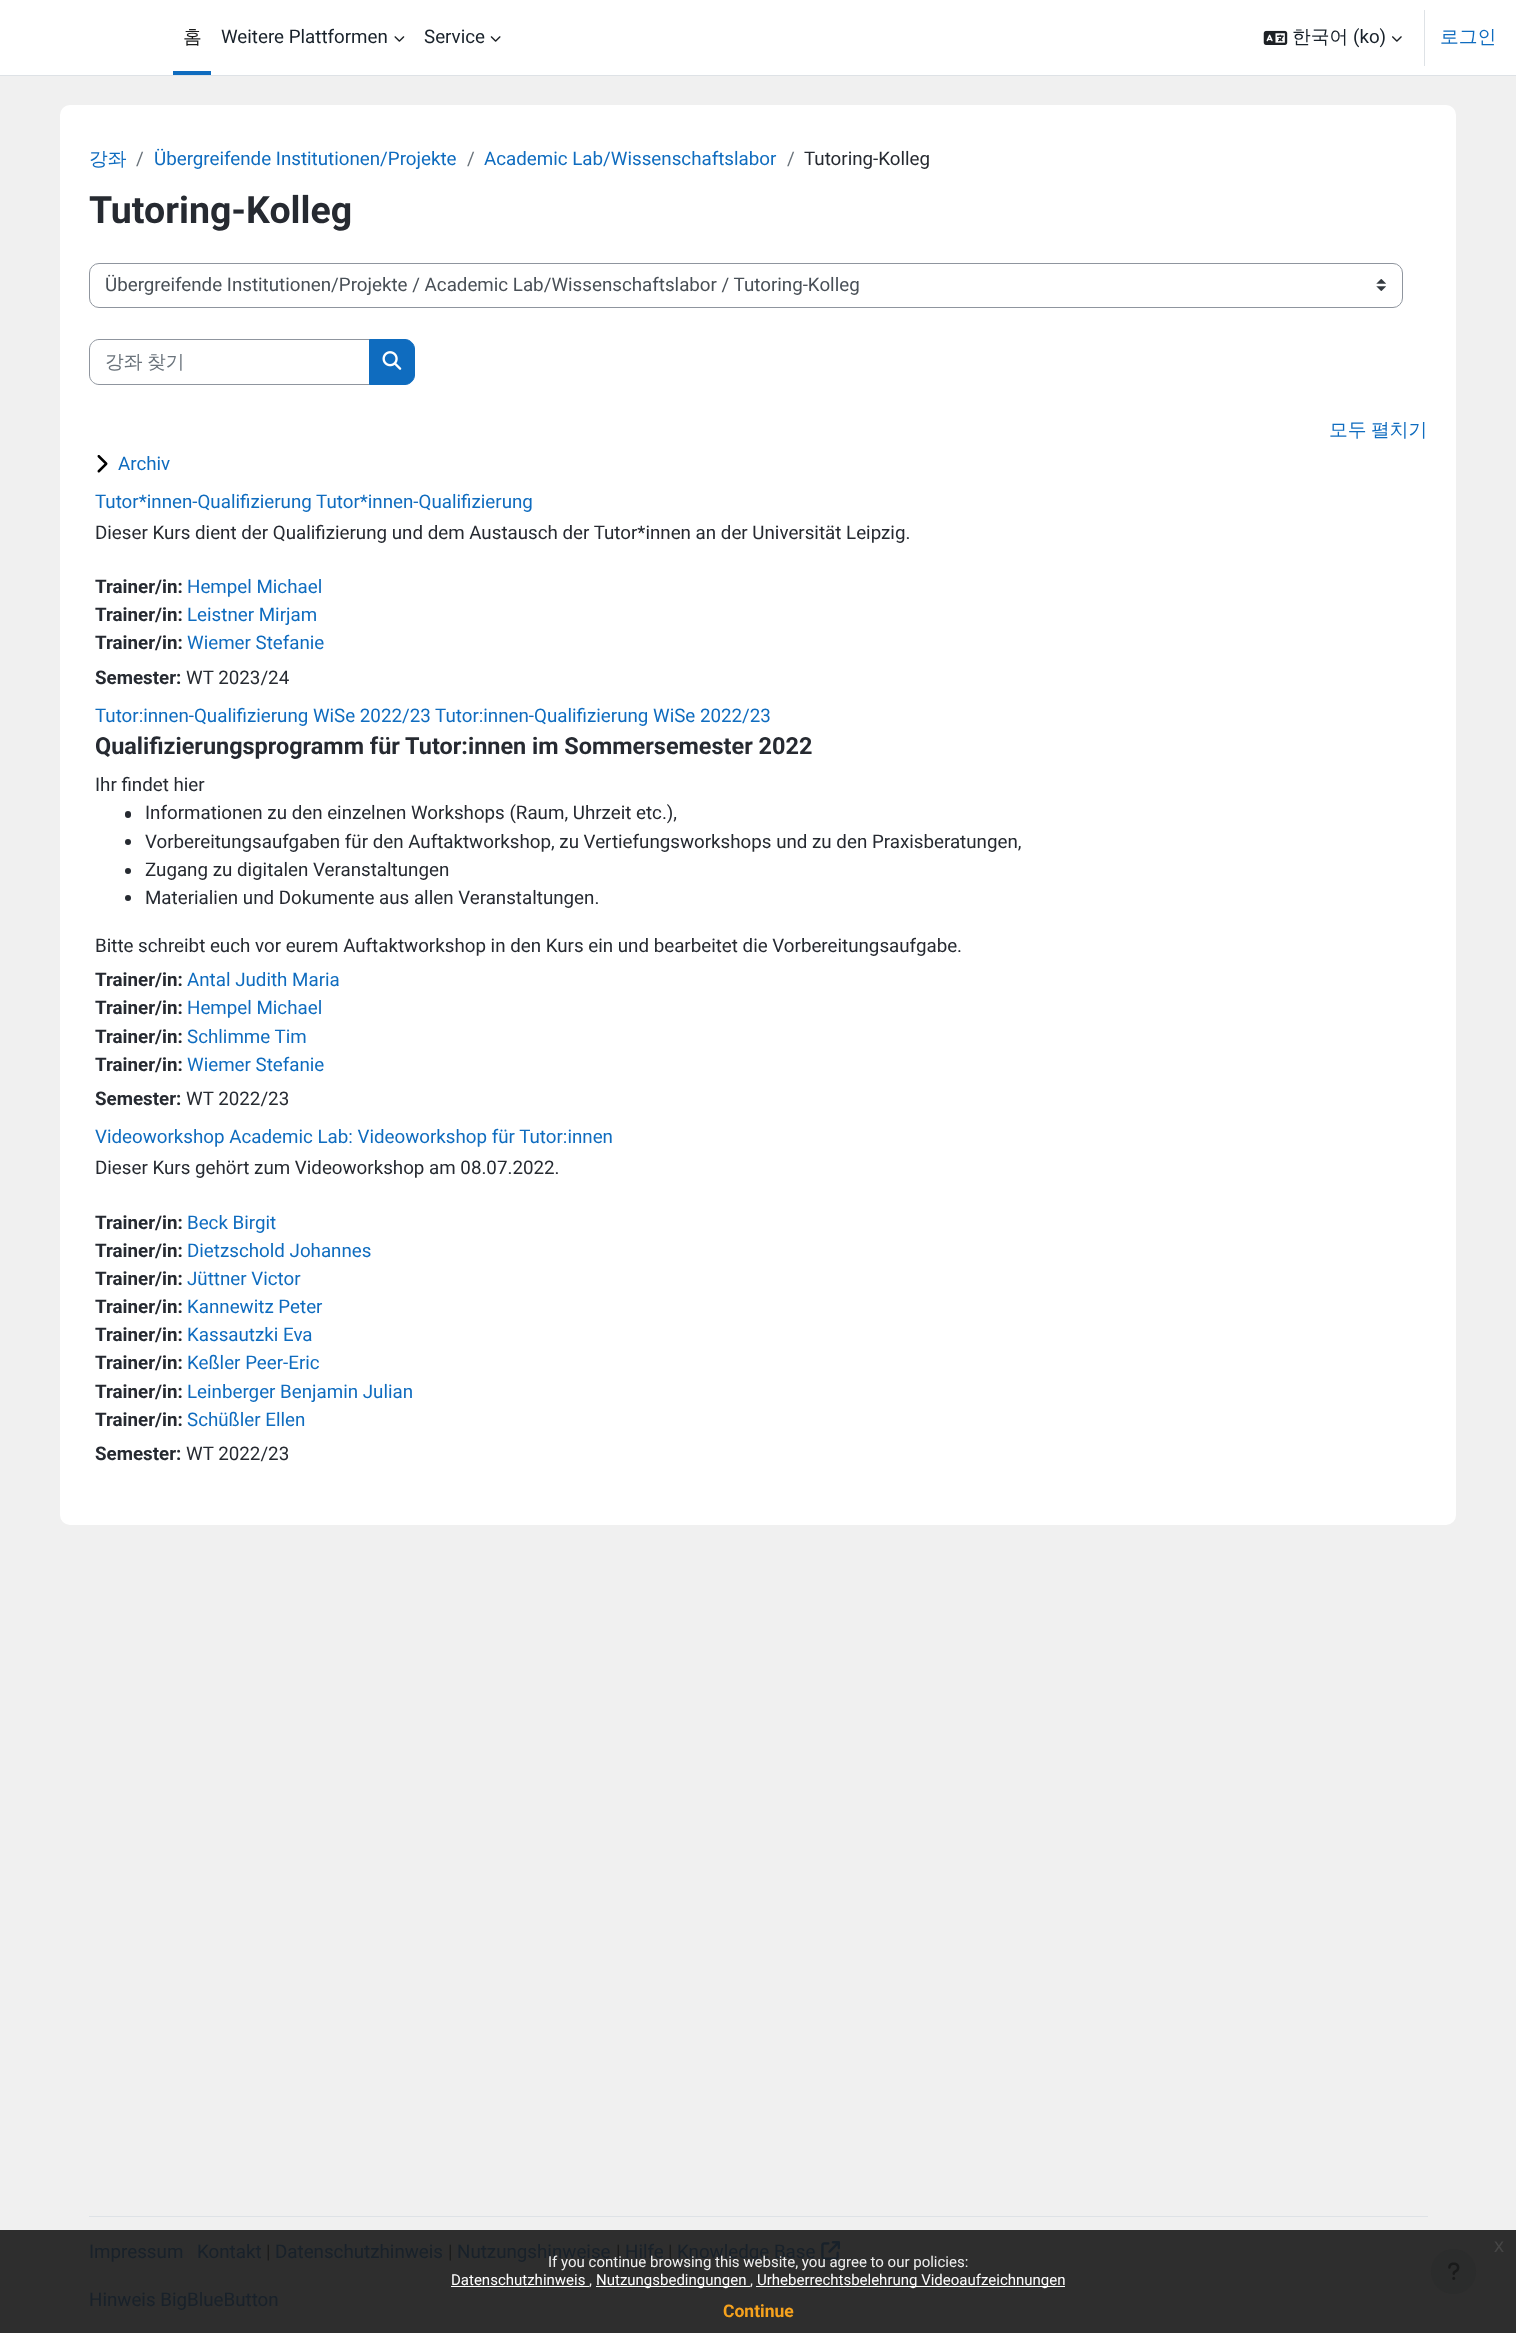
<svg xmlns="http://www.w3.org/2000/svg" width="1516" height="2333">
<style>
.a{font:500 18.75px WenQuanYi Zen Hei;fill:#1a1b1b}
.b{font:18.75px Roboto;fill:#18212a}
.c{font:500 18.75px WenQuanYi Zen Hei;fill:#18212a}
.d{font:500 18.75px WenQuanYi Zen Hei;fill:#0f6cbf}
.e{font:18.75px Roboto;fill:#6a737b}
.f{font:18.75px Roboto;fill:#0f6cbf}
.g{font:18.75px Roboto;fill:#262a31}
.h{font:bold 37.5px Roboto;fill:#262a31}
.i{font:18.75px Roboto;fill:#495057}
.j{font:500 18.75px WenQuanYi Zen Hei;fill:#6a737b}
.k{font:bold 18.75px Roboto;fill:#262a31}
.l{font:bold 23.45px Roboto;fill:#262a31}
.m{font:18.75px Roboto;fill:#1a1b1b}
.n{font:20px Liberation Sans;fill:#464646}
.o{font:15px Roboto;fill:#efefef}
.p{font:15px Roboto;fill:#fff}
.q{font:bold 17.5px Roboto;fill:#f6a21d}
</style>
<rect width="100%" height="100%" fill="#f0f0f0"/>
<path fill="#2e2e2e" d="M0 2230h1516v103H0z"/>
<path fill="#fff" d="M0 0h1516v75H0z"/>
<path fill="#dee2e6" d="M0 75h1516v1H0z"/>
<path fill="#0f6cbf" d="M173 71h38v4H173z"/>
<image href="1.png" x="394" y="36" width="11" height="6"/>
<image href="2.png" x="490" y="36" width="11" height="6"/>
<image href="3.png" x="1263" y="30" width="25" height="15"/>
<image href="4.png" x="1392" y="36" width="10" height="6"/>
<path fill="#dee2e6" d="M1424 10h1v56H1424z"/>
<rect fill="#fff" x="60" y="105" width="1396" height="1420" rx="10"/>
<image href="5.png" x="1376" y="279" width="10" height="12"/>
<rect fill="none" stroke="#8f959e" x="89.5" y="263.5" width="1313" height="44" rx="9.5"/>
<path fill="none" stroke="#8f959e" d="M99 339.5h270.5v45h-270.5c-5 0-9.5-4.5-9.5-9.5v-26c0-5 4.5-9.5 9.5-9.5z"/>
<path fill="#0f6cbf" stroke="#0f6cbf" d="M369.5 339.5h35.5c5 0 9.5 4.5 9.5 9.5v26c0 5-4.5 9.5-9.5 9.5h-35.5z"/>
<image href="6.png" x="382" y="351" width="20" height="19"/>
<image href="7.png" x="97" y="455" width="11" height="18"/>
<rect fill="#262a31" x="125" y="811" width="6" height="7" rx="3"/>
<circle fill="#262a31" cx="128" cy="842" r="3"/>
<circle fill="#262a31" cx="128" cy="871" r="3"/>
<circle fill="#262a31" cx="128" cy="898" r="3"/>
<path fill="#dee2e6" d="M89 2216h1339v1H89z"/>
<image href="8.png" x="821" y="2241" width="19" height="19"/>
<circle fill="#2b2c2c" cx="1453.5" cy="2271.5" r="22.5"/>
<image href="9.png" x="1448" y="2262" width="12" height="18"/>
<path fill="#fff" d="M451 2286h138v1H451z"/>
<path fill="#fff" d="M596 2286h154v1H596z"/>
<path fill="#fff" d="M756 2286h309v1H756z"/>
<text class="a" x="183" y="43">홈</text>
<text class="b" x="221" y="43">Weitere Plattformen</text>
<text class="b" x="424" y="43">Service</text>
<text class="c" x="1292" y="43">한국어</text>
<text class="b" x="1353" y="43">(ko)</text>
<text class="d" x="1440" y="43">로그인</text>
<text class="d" x="89" y="165">강좌</text>
<text class="e" x="136" y="165">/</text>
<text class="f" x="154" y="165">Übergreifende Institutionen/Projekte</text>
<text class="e" x="467" y="165">/</text>
<text class="f" x="484" y="165">Academic Lab/Wissenschaftslabor</text>
<text class="e" x="787" y="165">/</text>
<text class="g" x="804" y="165">Tutoring-Kolleg</text>
<text class="h" x="89" y="223">Tutoring-Kolleg</text>
<text class="i" x="105" y="291">Übergreifende Institutionen/Projekte / Academic Lab/Wissenschaftslabor / Tutoring-Kolleg</text>
<text class="j" x="105" y="368" word-spacing="-1">강좌 찾기</text>
<text class="d" x="1329" y="436" word-spacing="-1">모두 펼치기</text>
<text class="f" x="118" y="470">Archiv</text>
<text class="f" x="95" y="508">Tutor*innen-Qualifizierung Tutor*innen-Qualifizierung</text>
<text class="g" x="95" y="539">Dieser Kurs dient der Qualifizierung und dem Austausch der Tutor*innen an der Universität Leipzig.</text>
<text class="k" x="95" y="593">Trainer/in:</text>
<text class="f" x="187" y="593">Hempel Michael</text>
<text class="k" x="95" y="621">Trainer/in:</text>
<text class="f" x="187" y="621">Leistner Mirjam</text>
<text class="k" x="95" y="649">Trainer/in:</text>
<text class="f" x="187" y="649">Wiemer Stefanie</text>
<text class="k" x="95" y="684">Semester:</text>
<text class="g" x="186" y="684">WT 2023/24</text>
<text class="f" x="95" y="722">Tutor:innen-Qualifizierung WiSe 2022/23 Tutor:innen-Qualifizierung WiSe 2022/23</text>
<text class="l" x="95" y="754">Qualifizierungsprogramm für Tutor:innen im Sommersemester 2022</text>
<text class="g" x="95" y="791">Ihr findet hier</text>
<text class="g" x="145" y="819">Informationen zu den einzelnen Workshops (Raum, Uhrzeit etc.),</text>
<text class="g" x="145" y="848">Vorbereitungsaufgaben für den Auftaktworkshop, zu Vertiefungsworkshops und zu den Praxisberatungen,</text>
<text class="g" x="145" y="876">Zugang zu digitalen Veranstaltungen</text>
<text class="g" x="145" y="904">Materialien und Dokumente aus allen Veranstaltungen.</text>
<text class="g" x="95" y="952">Bitte schreibt euch vor eurem Auftaktworkshop in den Kurs ein und bearbeitet die Vorbereitungsaufgabe.</text>
<text class="k" x="95" y="986">Trainer/in:</text>
<text class="f" x="187" y="986">Antal Judith Maria</text>
<text class="k" x="95" y="1014">Trainer/in:</text>
<text class="f" x="187" y="1014">Hempel Michael</text>
<text class="k" x="95" y="1043">Trainer/in:</text>
<text class="f" x="187" y="1043">Schlimme Tim</text>
<text class="k" x="95" y="1071">Trainer/in:</text>
<text class="f" x="187" y="1071">Wiemer Stefanie</text>
<text class="k" x="95" y="1105">Semester:</text>
<text class="g" x="186" y="1105">WT 2022/23</text>
<text class="f" x="95" y="1143">Videoworkshop Academic Lab: Videoworkshop für Tutor:innen</text>
<text class="g" x="95" y="1174">Dieser Kurs gehört zum Videoworkshop am 08.07.2022.</text>
<text class="k" x="95" y="1229">Trainer/in:</text>
<text class="f" x="187" y="1229">Beck Birgit</text>
<text class="k" x="95" y="1257">Trainer/in:</text>
<text class="f" x="187" y="1257">Dietzschold Johannes</text>
<text class="k" x="95" y="1285">Trainer/in:</text>
<text class="f" x="187" y="1285">Jüttner Victor</text>
<text class="k" x="95" y="1313">Trainer/in:</text>
<text class="f" x="187" y="1313">Kannewitz Peter</text>
<text class="k" x="95" y="1341">Trainer/in:</text>
<text class="f" x="187" y="1341">Kassautzki Eva</text>
<text class="k" x="95" y="1369">Trainer/in:</text>
<text class="f" x="187" y="1369">Keßler Peer-Eric</text>
<text class="k" x="95" y="1398">Trainer/in:</text>
<text class="f" x="187" y="1398">Leinberger Benjamin Julian</text>
<text class="k" x="95" y="1426">Trainer/in:</text>
<text class="f" x="187" y="1426">Schüßler Ellen</text>
<text class="k" x="95" y="1460">Semester:</text>
<text class="g" x="186" y="1460">WT 2022/23</text>
<text class="b" x="89" y="2258">Impressum</text>
<text class="b" x="197" y="2258">Kontakt</text>
<text class="m" x="266" y="2258">|</text>
<text class="b" x="275" y="2258">Datenschutzhinweis</text>
<text class="m" x="448" y="2258">|</text>
<text class="b" x="457" y="2258">Nutzungshinweise</text>
<text class="m" x="616" y="2258">|</text>
<text class="b" x="625" y="2258">Hilfe</text>
<text class="m" x="668" y="2258">|</text>
<text class="b" x="677" y="2258">Knowledge Base</text>
<text class="b" x="89" y="2306">Hinweis BigBlueButton</text>
<text class="n" x="1494" y="2252">x</text>
<text class="o" x="548" y="2267">If you continue browsing this website, you agree to our policies:</text>
<text class="p" x="451" y="2285">Datenschutzhinweis</text>
<text class="o" x="589" y="2285">,</text>
<text class="p" x="596" y="2285">Nutzungsbedingungen</text>
<text class="o" x="750" y="2285">,</text>
<text class="p" x="757" y="2285">Urheberrechtsbelehrung Videoaufzeichnungen</text>
<text class="q" x="723" y="2317">Continue</text>
</svg>
